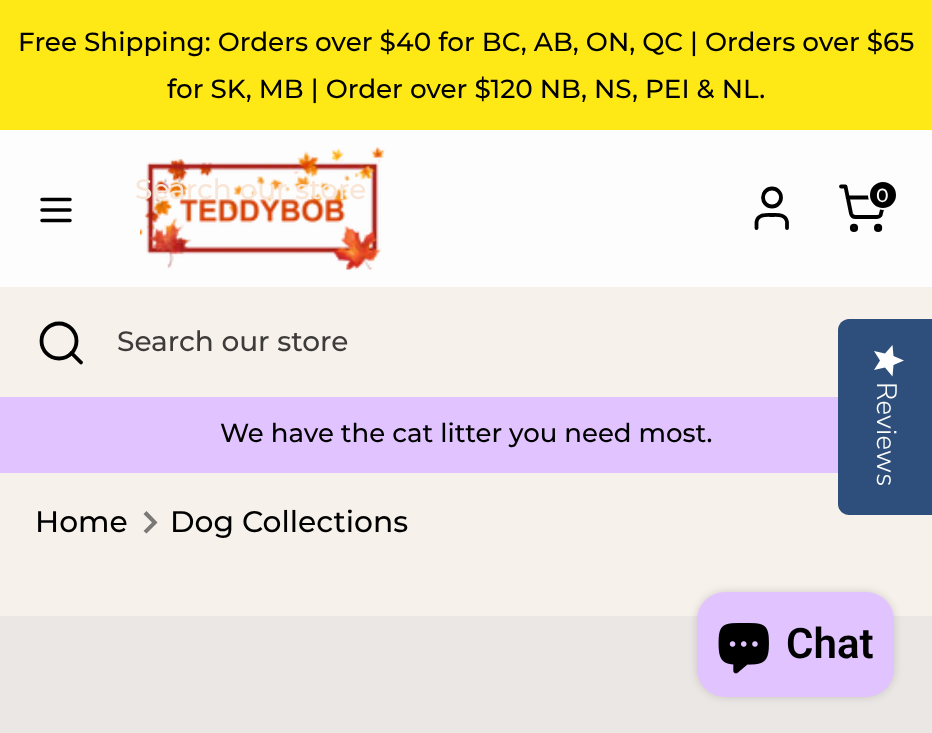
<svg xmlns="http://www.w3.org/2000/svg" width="932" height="733">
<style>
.a{font:500 26.25px Montserrat;fill:#000}
.b{font:500 28px Montserrat;fill:#f8e5d5}
.c{font:500 28px Montserrat;fill:#3e3c3b}
.d{font:500 26px Montserrat;fill:#000}
.e{font:500 19px Montserrat;fill:#fdfdfd}
.f{font:300 28px Nunito Sans;fill:#fdfdfd}
.g{font:500 29.75px Montserrat;fill:#000}
.h{font:600 42px Roboto;fill:#000}
</style>
<defs>
<linearGradient id="g1" gradientUnits="userSpaceOnUse" x1="904" y1="345" x2="904" y2="376"><stop offset="1" stop-color="#fff"/><stop offset="1" stop-color="#eaeaea"/></linearGradient>
</defs>
<rect width="100%" height="100%" fill="#f6f1eb"/>
<path fill="#fee917" d="M0 0h932v130H0z"/>
<circle fill="none" stroke="#000" stroke-width="3.8" cx="59" cy="341" r="17.5"/>
<path fill="none" stroke="#000" stroke-width="3.8" stroke-linecap="round" stroke-linejoin="round" d="M81 362.5l-9.5-9.5"/>
<path fill="#e1c4ff" d="M0 397h838v76H0z"/>
<path fill="#fdfdfd" d="M0 130h932v157H0z"/>
<image href="1.png" x="140" y="147" width="245" height="123"/>
<path fill="none" stroke="#000" stroke-width="3.8" stroke-linecap="round" stroke-linejoin="round" d="M787 228v-6c-1.5-8-9-7-15-7c-6.5 0-14-1-15.5 7v6"/>
<circle fill="none" stroke="#000" stroke-width="3.8" cx="772" cy="197.5" r="9"/>
<circle fill="none" stroke="#000" stroke-width="3.8" cx="854" cy="227.9" r="2.2"/>
<circle fill="none" stroke="#000" stroke-width="3.8" cx="878.1" cy="227.9" r="2.2"/>
<path fill="none" stroke="#000" stroke-width="3.8" stroke-linecap="round" stroke-linejoin="round" d="M841 186.5h4.5l5.5 27c.5 2 2.5 3.5 4.5 3.5h21.5c2 0 4-1.5 4-3.5l4-16h-37.5"/>
<circle fill="#000" stroke="#fdfdfd" stroke-width="2" cx="883" cy="195" r="14"/>
<path fill="none" stroke="#000" stroke-width="3.5" stroke-linecap="round" stroke-linejoin="round" d="M42 210h28m-28-10.5h28m-28 21h28"/>
<path fill="#2e4f7c" d="M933 319v196h-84c-6 0-11-5-11-11v-174c0-6 5-11 11-11z"/>
<path fill="url(#g1)" d="M880 360.5l-6 9.5l11-2.5l7.5 9l1-11.5l10.5-4.5l-10.5-4.5l-1-11l-7.5 8.5l-11-2.5z"/>
<path fill="#7b7976" d="M143.5 531l8.5-8.5l-8.5-8.5l3-3l11 11.5l-11 11z"/>
<path fill="#ebe7e4" d="M0 616h932v117H0z"/>
<rect fill="#00000026" filter="blur(4.5px)" x="697" y="592" width="197" height="105" rx="28"/>
<rect fill="#e1c4ff" x="697" y="592" width="197" height="105" rx="28"/>
<image href="2.png" x="718" y="623" width="51" height="51"/>
<text class="a" x="18" y="51">Free Shipping: Orders over $40 for BC, AB, ON, QC | Orders over $65</text>
<text class="a" x="167" y="98">for SK, MB | Order over $120 NB, NS, PEI &amp; NL.</text>
<text class="b" x="135" y="199">Search our store</text>
<text class="c" x="117" y="351">Search our store</text>
<text class="d" x="220" y="442">We have the cat litter you need most.</text>
<text class="e" x="876" y="202">0</text>
<text class="f" x="877" y="382" transform="rotate(90 877 382)">Reviews</text>
<text class="g" x="35" y="532">Home</text>
<text class="g" x="170" y="532">Dog Collections</text>
<text class="h" x="786" y="658">Chat</text>
</svg>
